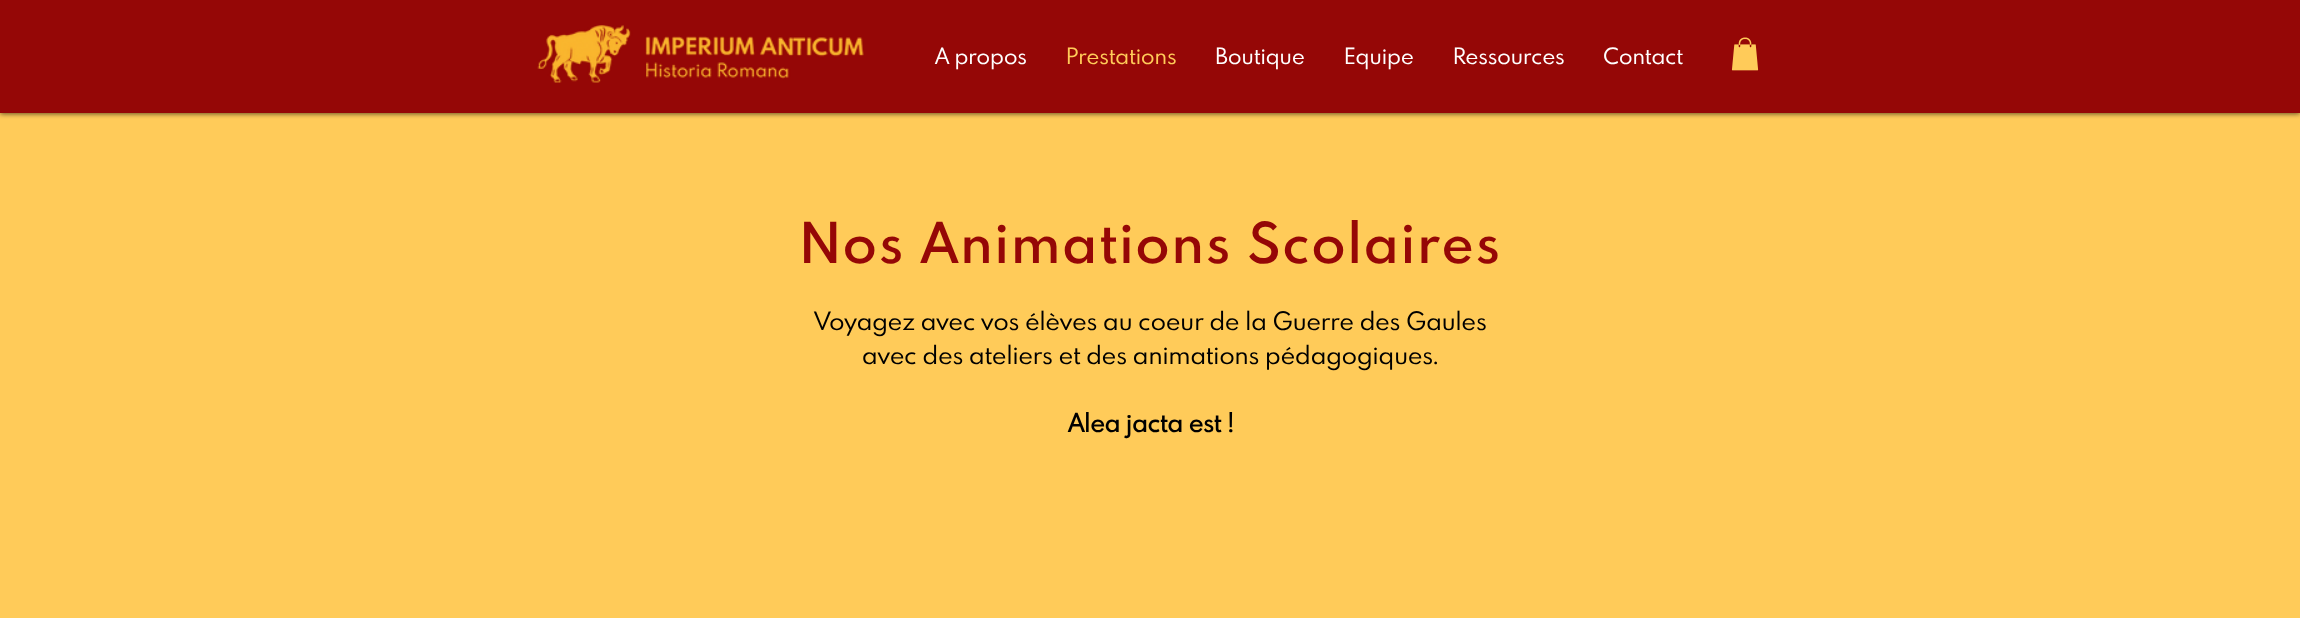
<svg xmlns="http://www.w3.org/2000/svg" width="2300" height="618">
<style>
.a{font:20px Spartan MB;fill:#fff}
.b{font:20px Spartan MB;fill:#ffcb59}
.c{font:600 50px Spartan MB;letter-spacing:2.5px;fill:#950706}
.d{font:22.5px Spartan MB;fill:#000}
.e{font:bold 22.5px Spartan MB;fill:#000}
</style>
<rect width="100%" height="100%" fill="#ffcb59"/>
<path fill="#00000099" filter="blur(2.5px)" d="M0 1h2300v113H0z"/>
<path fill="#950706" d="M0 0h2300v113H0z"/>
<image href="1.png" x="537" y="25" width="327" height="58"/>
<image href="2.png" x="1731" y="37" width="28" height="34"/>
<text class="a" x="935" y="64">A propos</text>
<text class="b" x="1066" y="64">Prestations</text>
<text class="a" x="1215" y="64">Boutique</text>
<text class="a" x="1344" y="64">Equipe</text>
<text class="a" x="1453" y="64">Ressources</text>
<text class="a" x="1603" y="64">Contact</text>
<text class="c" x="800" y="263">Nos Animations Scolaires</text>
<text class="d" x="814" y="330">Voyagez avec vos élèves au coeur de la Guerre des Gaules</text>
<text class="d" x="862" y="364">avec des ateliers et des animations pédagogiques.</text>
<text class="e" x="1068" y="432">Alea jacta est !</text>
</svg>
